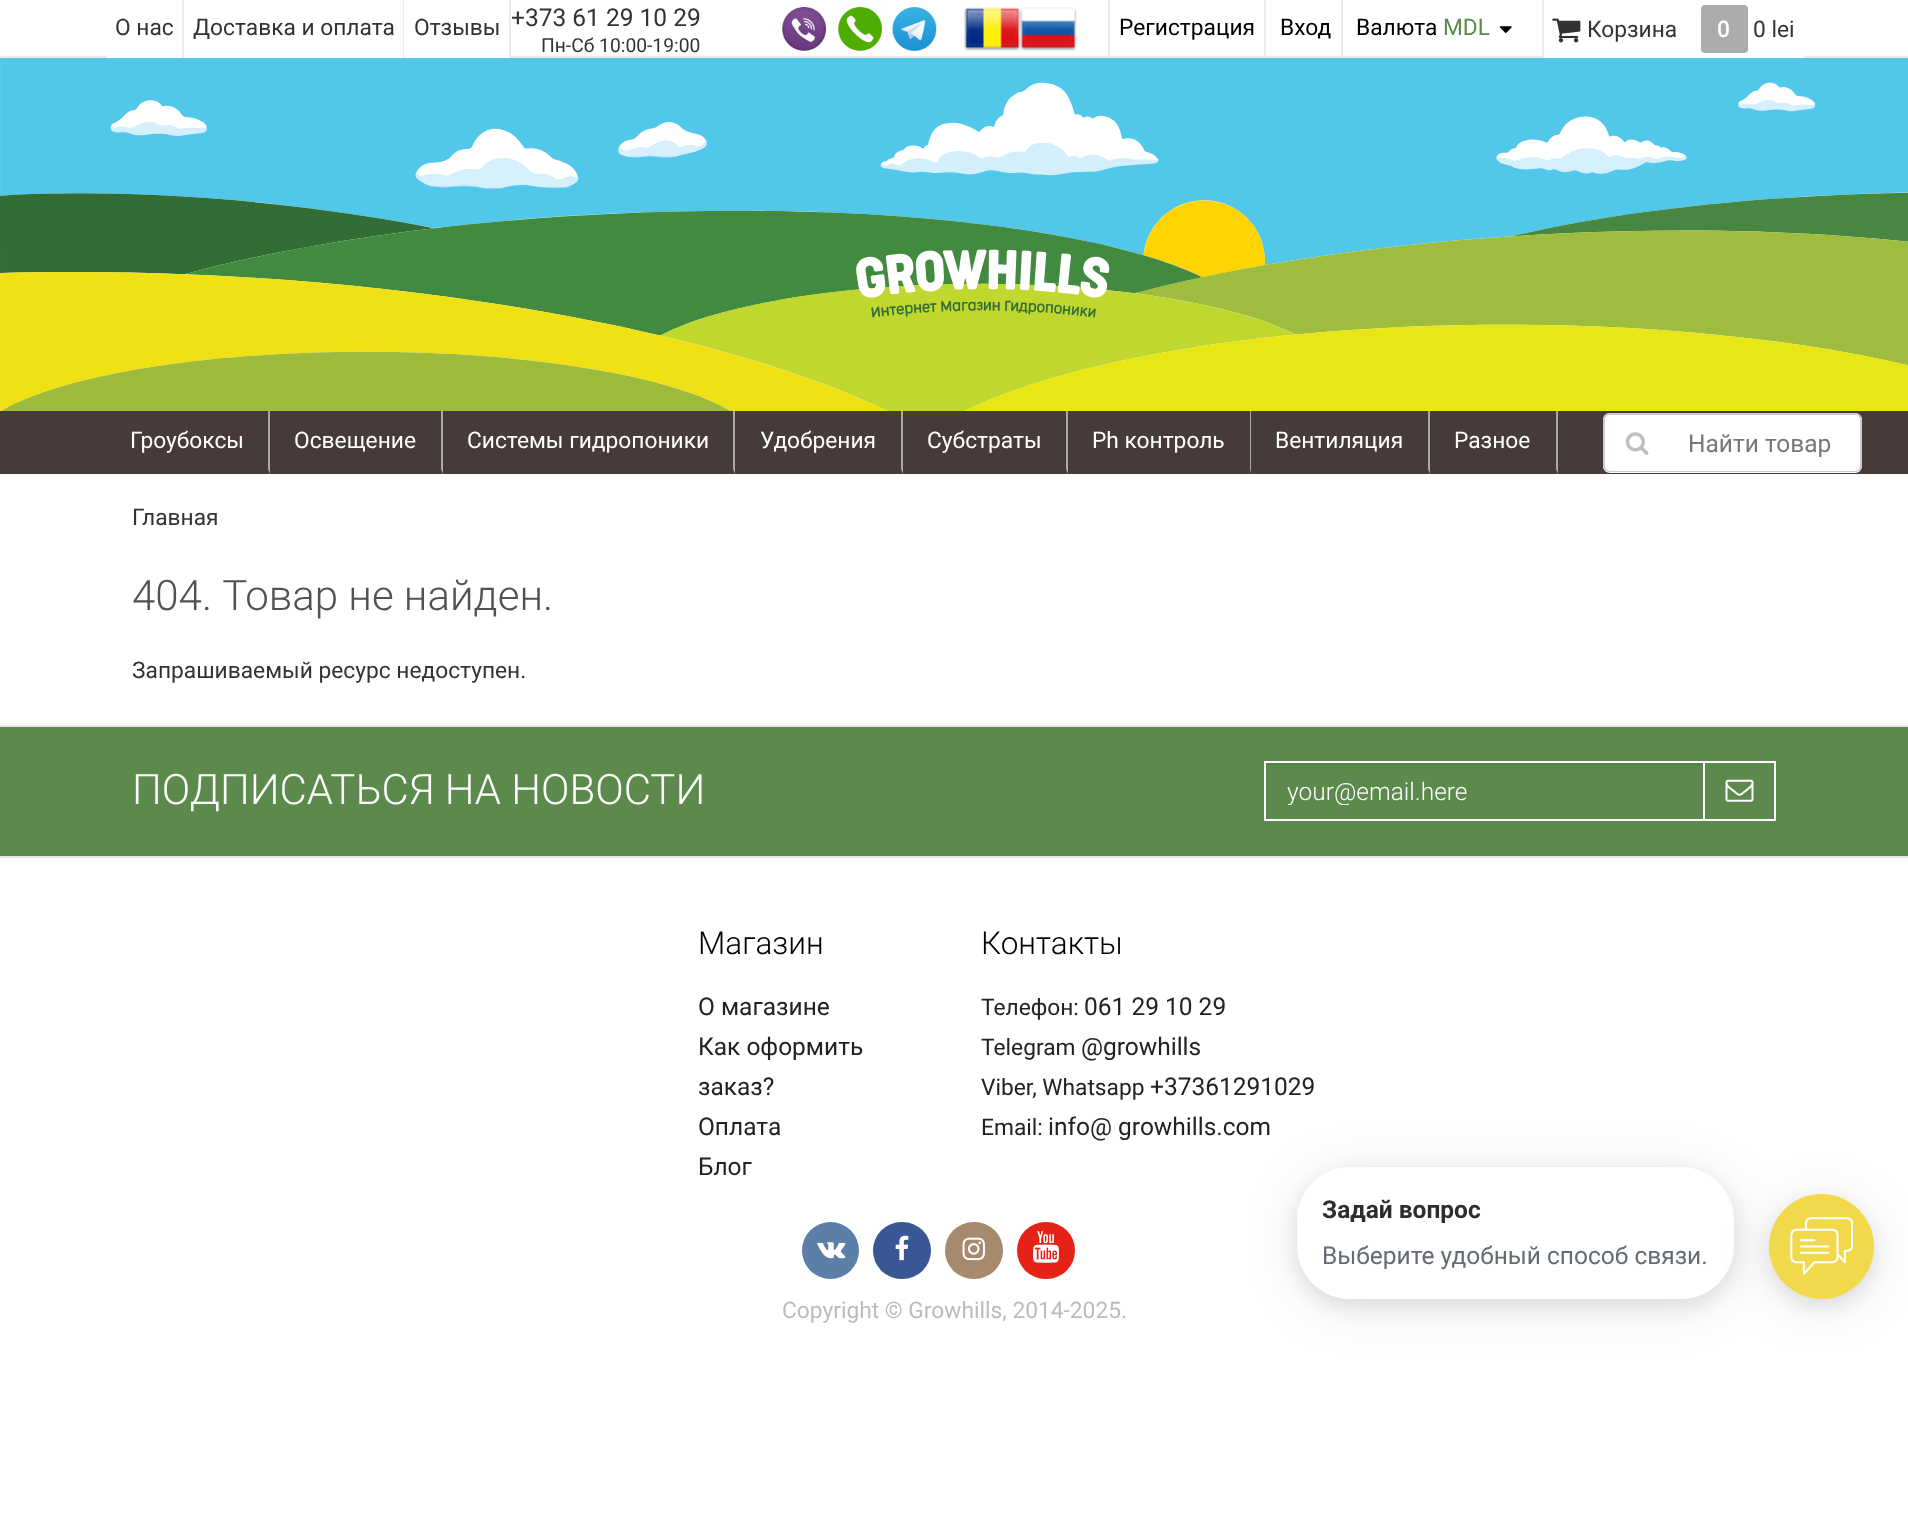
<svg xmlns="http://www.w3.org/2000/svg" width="1908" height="1534">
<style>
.a{font:22.75px Roboto;fill:#333}
.b{font:24.5px Roboto;fill:#333}
.c{font:19.25px Roboto;fill:#333}
.d{font:22.75px Roboto;fill:#000}
.e{font:22.75px Roboto;fill:#5c8a4c}
.f{font:500 22.75px Roboto;fill:#fff}
.g{font:22.75px Roboto;fill:#fff}
.h{font:24.5px Roboto;fill:#777}
.i{font:300 42px Roboto;fill:#515151}
.j{font:300 42px Roboto;fill:#fff}
.k{font:300 24.5px Roboto;fill:#fff}
.l{font:300 31.5px Roboto;fill:#000}
.m{font:24.5px Roboto;fill:#222}
.n{font:22.75px Roboto;fill:#222}
.o{font:22.75px Roboto;fill:#bbb}
.p{font:bold 24.5px Roboto;fill:#2d2d2d}
.q{font:24.5px Roboto;fill:#646b72}
</style>
<defs>
<clipPath id="clip1"><path d="M1286 777h398v28H1286z"/></clipPath>
</defs>
<rect width="100%" height="100%" fill="#fff"/>
<path fill="#ebebeb" d="M0 56h1908v2H0z"/>
<path fill="#fff" d="M107 56h75v2H107z"/>
<path fill="#ececec" d="M182 0h2v58H182z"/>
<path fill="#fff" d="M184 56h219v2H184z"/>
<path fill="#ececec" d="M403 0h1v58H403z"/>
<path fill="#fff" d="M404 56h105v2H404z"/>
<path fill="#ececec" d="M509 0h2v58H509z"/>
<image href="1.png" x="782" y="7" width="44" height="44"/>
<image href="2.png" x="838" y="7" width="44" height="44"/>
<image href="3.png" x="892" y="7" width="45" height="44"/>
<image href="4.png" x="964" y="7" width="57" height="44"/>
<image href="5.png" x="1020" y="7" width="57" height="44"/>
<path fill="#ececec" d="M1264 0h2v58H1264z"/>
<path fill="#ececec" d="M1108 0h2v58H1108z"/>
<path fill="#ececec" d="M1341 0h2v58H1341z"/>
<path fill="#ececec" d="M1542 0h2v58H1542z"/>
<image href="6.png" x="1499" y="26" width="13" height="7"/>
<path fill="#fff" d="M1544 56h260v2H1544z"/>
<image href="7.png" x="1552" y="18" width="29" height="25"/>
<rect fill="#acacac" x="1701" y="5" width="47" height="48" rx="4"/>
<image href="8.png" x="0" y="58" width="1908" height="353"/>
<path fill="#473b39" d="M0 411h1908v63H0z"/>
<path fill="#aaa" d="M270 411v63l-2-5v-58z"/>
<path fill="#aaa" d="M443 411v63l-2-5v-58z"/>
<path fill="#aaa" d="M735 411v63l-2-5v-58z"/>
<path fill="#aaa" d="M903 411v63l-2-5v-58z"/>
<path fill="#aaa" d="M1068 411v63l-2-5v-58z"/>
<path fill="#aaa" d="M1251 411v63l-1-5v-58z"/>
<path fill="#aaa" d="M1430 411v63l-2-5v-58z"/>
<path fill="#aaa" d="M1558 411v63l-2-5v-58z"/>
<path fill="#fff" d="M1668 413h187c4 0 7 3 7 7v46c0 4-3 7-7 7h-187z"/>
<path fill="#ccc" fill-rule="evenodd" d="M1668 413h187c4 0 7 3 7 7v46c0 3-3 6-7 6h-187zm0 2h187c3 0 5 2 5 5v46c0 2-2 5-5 5h-187z"/>
<path fill="#fff" d="M1610 413h60v60h-60c-4 0-7-3-7-7v-46c0-4 3-7 7-7z"/>
<path fill="#ccc" fill-rule="evenodd" d="M1610 413h60v59h-60c-4 0-7-3-7-6v-46c0-4 3-7 7-7zm0 2h60v56h-60c-3 0-5-3-5-5v-46c0-3 2-5 5-5z"/>
<image href="9.png" x="1625" y="432" width="24" height="23"/>
<path fill="#5c8a4c" d="M0 727h1908v129H0z"/>
<path fill="#e5e5e5" d="M0 725h1908v2H0z"/>
<path fill="#558046" d="M1265 763h440v2H1265z"/>
<path fill="#fff" d="M1264 761h441v2H1264z"/>
<path fill="#fff" d="M1264 819h441v2H1264z"/>
<path fill="#fff" d="M1264 761h2v60H1264z"/>
<path fill="none" stroke="#fff" stroke-width="2" d="M1704 762h71v58H1704z"/>
<image href="10.png" x="1725" y="779" width="29" height="23"/>
<path fill="#e5e5e5" d="M0 856h1908v2H0z"/>
<circle fill="#5b7fa6" cx="830.5" cy="1250.5" r="28.5"/>
<image href="11.png" x="817" y="1242" width="29" height="17"/>
<rect fill="#3a5795" x="873" y="1222" width="58" height="57" rx="28.5"/>
<image href="12.png" x="895" y="1235" width="14" height="26"/>
<rect fill="#a7896e" x="945" y="1222" width="58" height="57" rx="28.5"/>
<image href="13.png" x="962" y="1237" width="23" height="24"/>
<rect fill="#e62117" x="1017" y="1222" width="58" height="57" rx="28.5"/>
<image href="14.png" x="1033" y="1231" width="26" height="32"/>
<rect fill="#0000001a" filter="blur(26px)" x="1297" y="1174" width="437" height="132" rx="53"/>
<rect fill="#00000014" filter="blur(9px)" x="1297" y="1174" width="437" height="132" rx="53"/>
<rect fill="#fff" x="1297" y="1167" width="437" height="132" rx="53"/>
<rect fill="#0000001a" filter="blur(26px)" x="1769" y="1201" width="105" height="105" rx="52.5"/>
<rect fill="#00000014" filter="blur(9px)" x="1769" y="1201" width="105" height="105" rx="52.5"/>
<circle fill="#f2d94c" cx="1821.5" cy="1246.5" r="52.5"/>
<image href="15.png" x="1790" y="1217" width="63" height="58"/>
<text class="a" x="115" y="35">О нас</text>
<text class="a" x="193" y="35">Доставка и оплата</text>
<text class="a" x="414" y="35">Отзывы</text>
<text class="b" x="511" y="26">+373 61 29 10 29</text>
<text class="c" x="541" y="52">Пн-Сб 10:00-19:00</text>
<text class="d" x="1119" y="35">Регистрация</text>
<text class="d" x="1280" y="35">Вход</text>
<text class="d" x="1356" y="35">Валюта</text>
<text class="e" x="1443" y="35">MDL</text>
<text class="a" x="1587" y="37">Корзина</text>
<text class="f" x="1717" y="37">0</text>
<text class="a" x="1753" y="37">0 lei</text>
<text class="g" x="130" y="448">Гроубоксы</text>
<text class="g" x="294" y="448">Освещение</text>
<text class="g" x="467" y="448">Системы гидропоники</text>
<text class="g" x="760" y="448">Удобрения</text>
<text class="g" x="927" y="448">Субстраты</text>
<text class="g" x="1092" y="448">Ph контроль</text>
<text class="g" x="1275" y="448">Вентиляция</text>
<text class="g" x="1454" y="448">Разное</text>
<text class="h" x="1688" y="452">Найти товар</text>
<text class="a" x="132" y="525">Главная</text>
<text class="i" x="132" y="610">404. Товар не найден.</text>
<text class="a" x="132" y="678">Запрашиваемый ресурс недоступен.</text>
<text class="j" x="132" y="804">ПОДПИСАТЬСЯ НА НОВОСТИ</text>
<g clip-path="url(#clip1)">
<text class="k" x="1287" y="800">your@email.here</text>
</g>
<text class="l" x="698" y="954">Магазин</text>
<text class="m" x="698" y="1015">О магазине</text>
<text class="m" x="698" y="1055">Как оформить</text>
<text class="m" x="698" y="1095">заказ?</text>
<text class="m" x="698" y="1135">Оплата</text>
<text class="m" x="698" y="1175">Блог</text>
<text class="l" x="981" y="954">Контакты</text>
<text class="n" x="981" y="1015">Телефон:</text>
<text class="m" x="1084" y="1015">061 29 10 29</text>
<text class="n" x="981" y="1055">Telegram</text>
<text class="m" x="1081" y="1055">@growhills</text>
<text class="n" x="981" y="1095">Viber, Whatsapp</text>
<text class="m" x="1150" y="1095">+37361291029</text>
<text class="n" x="981" y="1135">Email:</text>
<text class="m" x="1048" y="1135">info@ growhills.com</text>
<text class="o" x="782" y="1318">Copyright © Growhills, 2014-2025.</text>
<text class="p" x="1322" y="1218">Задай вопрос</text>
<text class="q" x="1322" y="1264">Выберите удобный способ связи.</text>
</svg>
